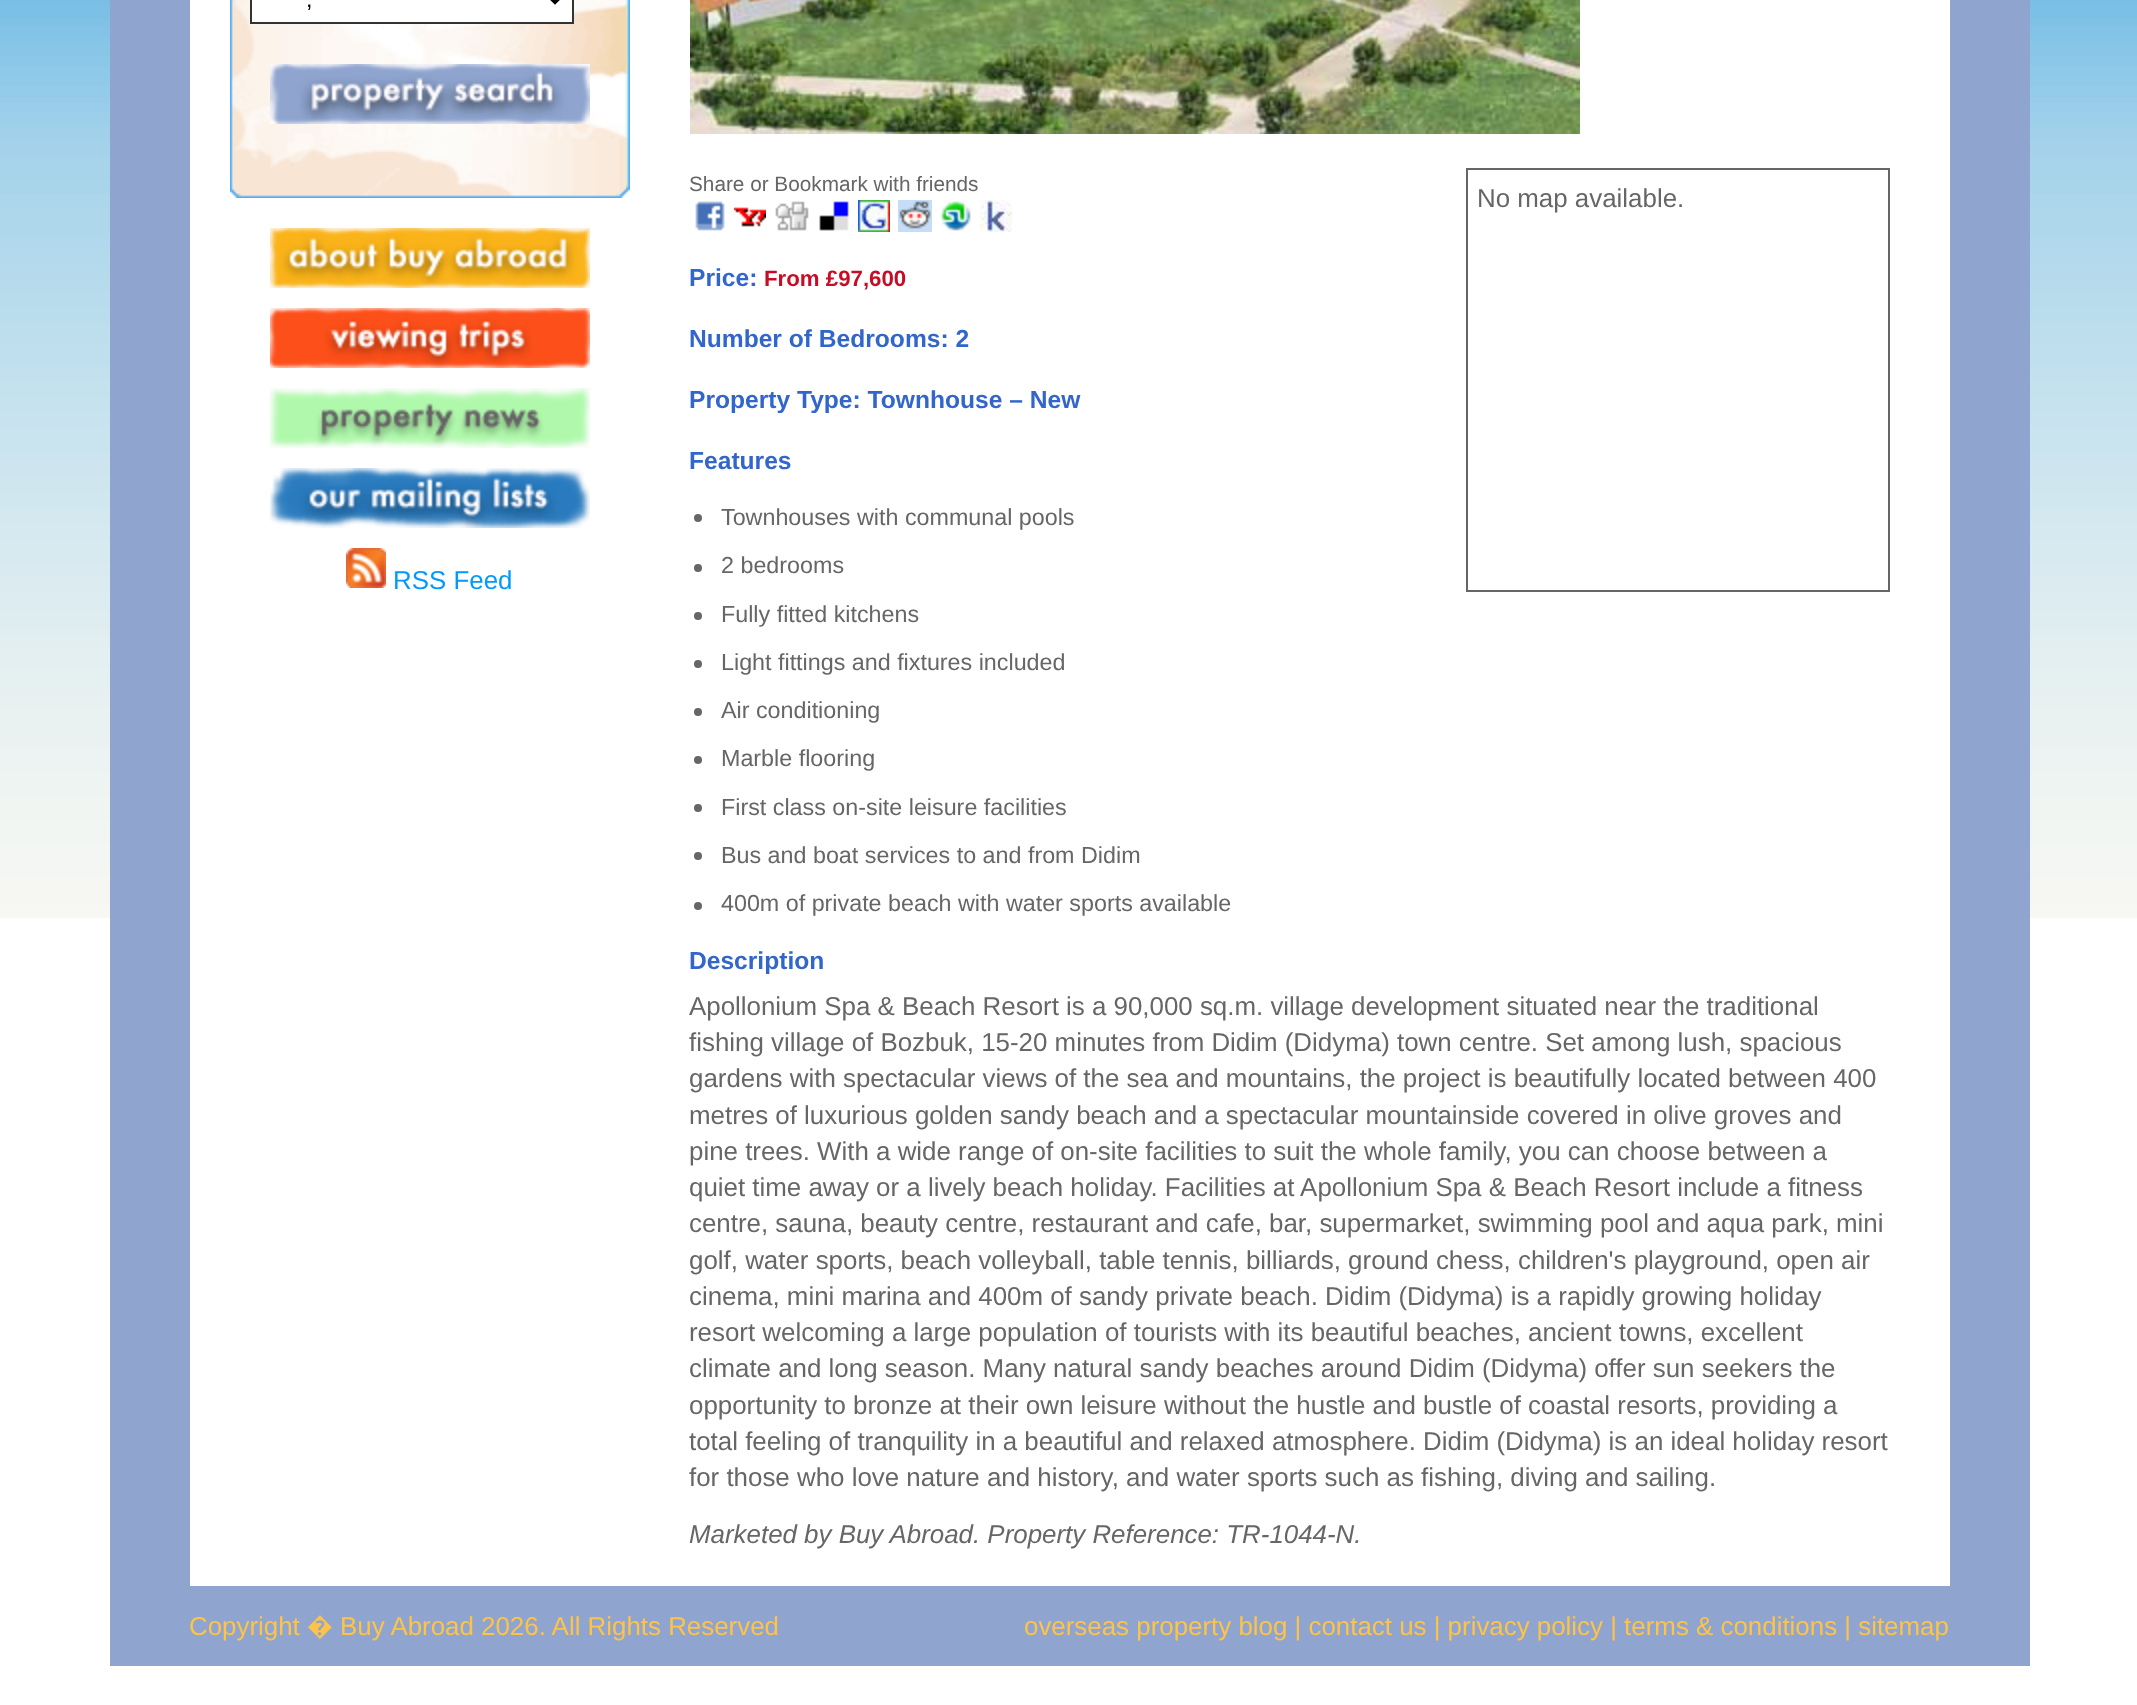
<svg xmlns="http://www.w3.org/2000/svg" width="2137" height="1705">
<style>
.a{font:23.3px Liberation Sans;fill:#000}
.b{font:25.9px Liberation Sans;fill:#09f}
.c{font:20.75px Liberation Sans;fill:#666}
.d{font:25.9px Liberation Sans;fill:#666}
.e{font:bold 24.6px Liberation Sans;fill:#36c}
.f{font:bold 22.25px Liberation Sans;fill:#c70d25}
.g{font:23.3px Liberation Sans;fill:#666}
.h{font:italic 25.9px Liberation Sans;fill:#666}
.i{font:25.9px Liberation Sans;fill:#ffc348}
.j{font:25.9px Noto Sans;fill:#ffc348}
</style>
<rect width="100%" height="100%" fill="#fff"/>
<image href="1.png" x="0" y="0" width="2137" height="918"/>
<path fill="#fff" d="M190 0h1760v918H190z"/>
<path fill="none" stroke="#8fa5cf" stroke-width="80" d="M150 -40h1840v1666H150z"/>
<image href="2.png" x="230" y="0" width="400" height="198"/>
<path fill="#fff" stroke="#333" stroke-width="2" d="M251 -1h322v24H251z"/>
<path fill="none" stroke="#000" stroke-width="4" d="M547-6l8 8l8-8"/>
<image href="3.png" x="270" y="64" width="320" height="60"/>
<image href="4.png" x="270" y="228" width="320" height="60"/>
<image href="5.png" x="270" y="308" width="320" height="60"/>
<image href="6.png" x="270" y="388" width="320" height="60"/>
<image href="7.png" x="270" y="468" width="320" height="60"/>
<image href="8.png" x="346" y="548" width="40" height="40"/>
<image href="9.png" x="690" y="0" width="890" height="134"/>
<image href="10.png" x="695" y="201" width="30" height="30"/>
<image href="11.png" x="734" y="207" width="32" height="20"/>
<image href="12.png" x="775" y="201" width="34" height="30"/>
<image href="13.png" x="819" y="201" width="30" height="30"/>
<image href="14.png" x="858" y="200" width="32" height="32"/>
<image href="15.png" x="898" y="200" width="34" height="32"/>
<image href="16.png" x="941" y="201" width="30" height="30"/>
<image href="17.png" x="980" y="200" width="32" height="32"/>
<path fill="none" stroke="#666" stroke-width="2" d="M1467 169h422v422H1467z"/>
<circle fill="#666" cx="698" cy="518" r="4"/>
<circle fill="#666" cx="698" cy="568" r="4"/>
<circle fill="#666" cx="698" cy="616" r="4"/>
<circle fill="#666" cx="698" cy="664" r="4"/>
<circle fill="#666" cx="698" cy="712" r="4"/>
<circle fill="#666" cx="698" cy="760" r="4"/>
<circle fill="#666" cx="698" cy="808" r="4"/>
<circle fill="#666" cx="698" cy="856" r="4"/>
<circle fill="#666" cx="698" cy="906" r="4"/>
<text class="a" x="306" y="7">,</text>
<text class="b" x="393" y="589">RSS Feed</text>
<text class="c" x="689" y="191">Share or Bookmark with friends</text>
<text class="d" x="1477" y="207">No map available.</text>
<text class="e" x="689" y="286">Price:</text>
<text class="f" x="764" y="286">From £97,600</text>
<text class="e" x="689" y="347">Number of Bedrooms: 2</text>
<text class="e" x="689" y="408">Property Type: Townhouse – New</text>
<text class="e" x="689" y="469">Features</text>
<text class="g" x="721" y="525">Townhouses with communal pools</text>
<text class="g" x="721" y="573">2 bedrooms</text>
<text class="g" x="721" y="622">Fully fitted kitchens</text>
<text class="g" x="721" y="670">Light fittings and fixtures included</text>
<text class="g" x="721" y="718">Air conditioning</text>
<text class="g" x="721" y="766">Marble flooring</text>
<text class="g" x="721" y="815">First class on-site leisure facilities</text>
<text class="g" x="721" y="863">Bus and boat services to and from Didim</text>
<text class="g" x="721" y="911">400m of private beach with water sports available</text>
<text class="e" x="689" y="969">Description</text>
<text class="d" x="689" y="1015">Apollonium Spa &amp; Beach Resort is a 90,000 sq.m. village development situated near the traditional</text>
<text class="d" x="689" y="1051">fishing village of Bozbuk, 15-20 minutes from Didim (Didyma) town centre. Set among lush, spacious</text>
<text class="d" x="689" y="1087">gardens with spectacular views of the sea and mountains, the project is beautifully located between 400</text>
<text class="d" x="689" y="1124">metres of luxurious golden sandy beach and a spectacular mountainside covered in olive groves and</text>
<text class="d" x="689" y="1160">pine trees. With a wide range of on-site facilities to suit the whole family, you can choose between a</text>
<text class="d" x="689" y="1196">quiet time away or a lively beach holiday. Facilities at Apollonium Spa &amp; Beach Resort include a fitness</text>
<text class="d" x="689" y="1232">centre, sauna, beauty centre, restaurant and cafe, bar, supermarket, swimming pool and aqua park, mini</text>
<text class="d" x="689" y="1269">golf, water sports, beach volleyball, table tennis, billiards, ground chess, children's playground, open air</text>
<text class="d" x="689" y="1305">cinema, mini marina and 400m of sandy private beach. Didim (Didyma) is a rapidly growing holiday</text>
<text class="d" x="689" y="1341">resort welcoming a large population of tourists with its beautiful beaches, ancient towns, excellent</text>
<text class="d" x="689" y="1377">climate and long season. Many natural sandy beaches around Didim (Didyma) offer sun seekers the</text>
<text class="d" x="689" y="1414">opportunity to bronze at their own leisure without the hustle and bustle of coastal resorts, providing a</text>
<text class="d" x="689" y="1450">total feeling of tranquility in a beautiful and relaxed atmosphere. Didim (Didyma) is an ideal holiday resort</text>
<text class="d" x="689" y="1486">for those who love nature and history, and water sports such as fishing, diving and sailing.</text>
<text class="h" x="689" y="1543">Marketed by Buy Abroad. Property Reference: TR-1044-N.</text>
<text class="i" x="189" y="1635">Copyright</text>
<text class="j" x="307" y="1635">�</text>
<text class="i" x="340" y="1635">Buy Abroad 2026. All Rights Reserved</text>
<text class="i" x="1024" y="1635">overseas property blog | contact us | privacy policy | terms &amp; conditions | sitemap</text>
</svg>
